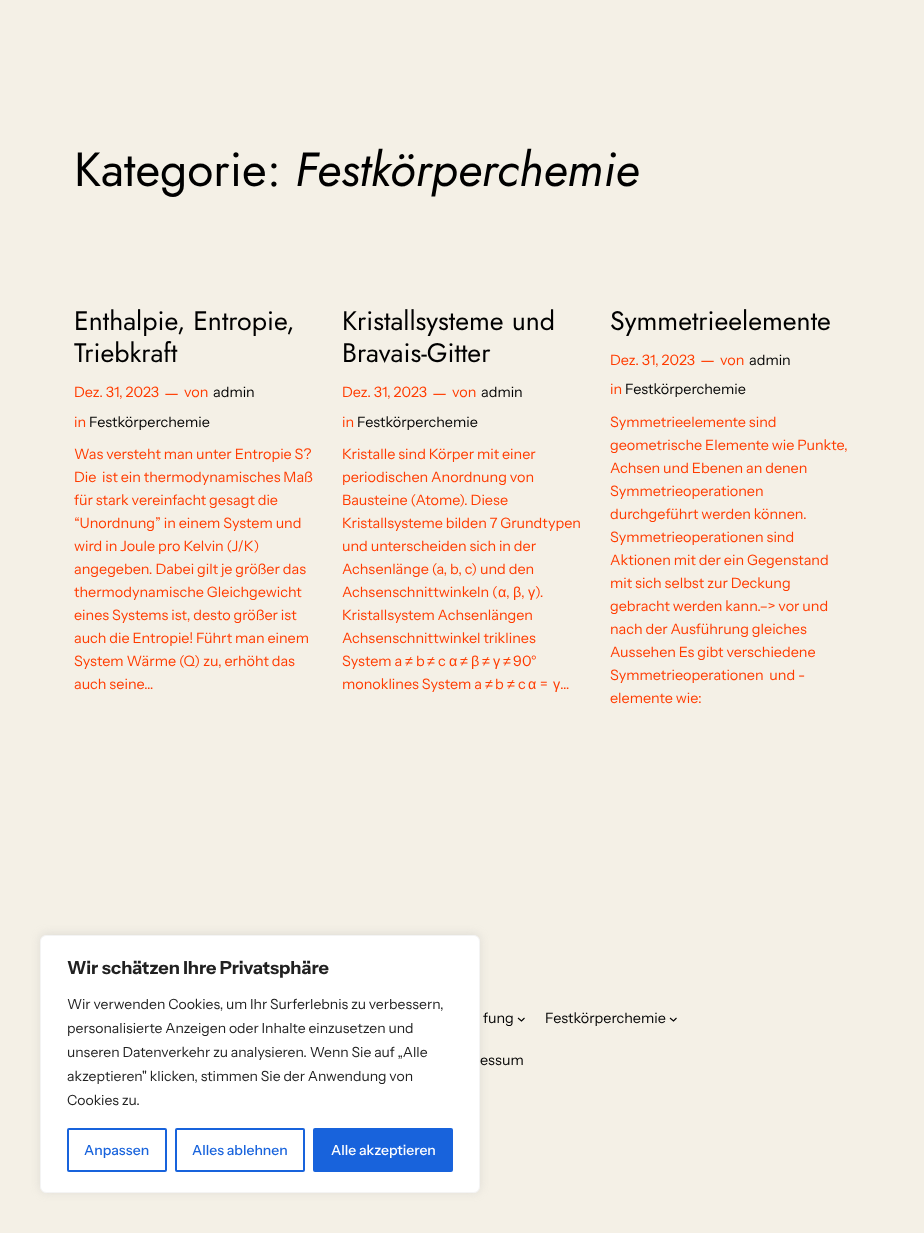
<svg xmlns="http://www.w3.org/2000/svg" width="924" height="1233">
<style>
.a{font:47.75px Jost;fill:#000}
.b{font:italic 47.75px Jost;fill:#000}
.c{font:26.75px Jost;fill:#000}
.d{font:14.4px Instrument Sans;fill:#ff3c00}
.e{font:17px Instrument Sans;fill:#ff3c00}
.f{font:14.4px Instrument Sans;fill:#000}
.g{font:14.4px Liberation Sans;fill:#ff3c00}
.h{font:bold 18px Instrument Sans;fill:#212121}
.i{font:14px Instrument Sans;fill:#212121}
.j{font:500 14px Instrument Sans;fill:#1863dc}
.k{font:500 14px Instrument Sans;fill:#fff}
</style>
<rect width="100%" height="100%" fill="#f4f0e6"/>
<path fill="none" stroke="#000" stroke-width="1.1" d="M518 1018l3.5 3l3-3"/>
<path fill="none" stroke="#000" stroke-width="1.1" d="M670 1018l3.5 3l3-3"/>
<rect fill="#acabab4d" filter="blur(5px)" x="40" y="934" width="440" height="258" rx="6"/>
<rect fill="#fff" stroke="#f4f4f4" x="40.5" y="935.5" width="439" height="257" rx="5.5"/>
<rect fill="none" stroke="#1863dc" stroke-width="2" x="68" y="1129" width="98" height="42" rx="1"/>
<rect fill="none" stroke="#1863dc" stroke-width="2" x="176" y="1129" width="128" height="42" rx="1"/>
<rect fill="#1863dc" stroke="#1863dc" stroke-width="2" x="314" y="1129" width="138" height="42" rx="1"/>
<text class="a" x="74" y="186">Kategorie:</text>
<text class="b" x="295" y="186">Festkörperchemie</text>
<text class="c" x="74" y="330">Enthalpie, Entropie,</text>
<text class="c" x="74" y="362">Triebkraft</text>
<text class="d" x="74" y="397">Dez. 31, 2023</text>
<text class="e" x="164" y="399">—</text>
<text class="d" x="184" y="397">von</text>
<text class="f" x="213" y="397">admin</text>
<text class="d" x="74" y="427">in</text>
<text class="f" x="89" y="427">Festkörperchemie</text>
<text class="d" x="74" y="459">Was versteht man unter Entropie S?</text>
<text class="d" xml:space="preserve" x="74" y="482">Die  ist ein thermodynamisches Maß</text>
<text class="d" x="74" y="505">für stark vereinfacht gesagt die</text>
<text class="d" x="74" y="528">“Unordnung” in einem System und</text>
<text class="d" x="74" y="551">wird in Joule pro Kelvin (J/K)</text>
<text class="d" x="74" y="574">angegeben. Dabei gilt je größer das</text>
<text class="d" x="74" y="597">thermodynamische Gleichgewicht</text>
<text class="d" x="74" y="620">eines Systems ist, desto größer ist</text>
<text class="d" x="74" y="643">auch die Entropie! Führt man einem</text>
<text class="d" x="74" y="666">System Wärme (Q) zu, erhöht das</text>
<text class="d" x="74" y="689">auch seine…</text>
<text class="c" x="342" y="330">Kristallsysteme und</text>
<text class="c" x="342" y="362">Bravais-Gitter</text>
<text class="d" x="342" y="397">Dez. 31, 2023</text>
<text class="e" x="432" y="399">—</text>
<text class="d" x="452" y="397">von</text>
<text class="f" x="481" y="397">admin</text>
<text class="d" x="342" y="427">in</text>
<text class="f" x="357" y="427">Festkörperchemie</text>
<text class="d" x="342" y="459">Kristalle sind Körper mit einer</text>
<text class="d" x="342" y="482">periodischen Anordnung von</text>
<text class="d" x="342" y="505">Bausteine (Atome). Diese</text>
<text class="d" x="342" y="528">Kristallsysteme bilden 7 Grundtypen</text>
<text class="d" x="342" y="551">und unterscheiden sich in der</text>
<text class="d" x="342" y="574">Achsenlänge (a, b, c) und den</text>
<text class="d" x="342" y="597">Achsenschnittwinkeln (</text>
<text class="g" x="498" y="597">α</text>
<text class="d" x="506" y="597">,</text>
<text class="g" x="513" y="597">β</text>
<text class="d" x="521" y="597">,</text>
<text class="g" x="528" y="597">γ</text>
<text class="d" x="535" y="597">).</text>
<text class="d" x="342" y="620">Kristallsystem Achsenlängen</text>
<text class="d" x="342" y="643">Achsenschnittwinkel triklines</text>
<text class="d" x="342" y="666">System a</text>
<text class="g" x="405" y="666">≠</text>
<text class="d" x="416" y="666">b</text>
<text class="g" x="427" y="666">≠</text>
<text class="d" x="438" y="666">c</text>
<text class="g" x="449" y="666">α</text>
<text class="g" x="460" y="666">≠</text>
<text class="g" x="471" y="666">β</text>
<text class="g" x="482" y="666">≠</text>
<text class="g" x="493" y="666">γ</text>
<text class="g" x="503" y="666">≠</text>
<text class="d" x="513" y="666">90°</text>
<text class="d" x="342" y="689">monoklines System a</text>
<text class="g" x="485" y="689">≠</text>
<text class="d" x="495" y="689">b</text>
<text class="g" x="507" y="689">≠</text>
<text class="d" x="518" y="689">c</text>
<text class="g" x="528" y="689">α</text>
<text class="d" x="540" y="689">=</text>
<text class="g" x="553" y="689">γ</text>
<text class="d" x="560" y="689">…</text>
<text class="c" x="610" y="330">Symmetrieelemente</text>
<text class="d" x="610" y="365">Dez. 31, 2023</text>
<text class="e" x="700" y="366">—</text>
<text class="d" x="720" y="365">von</text>
<text class="f" x="749" y="365">admin</text>
<text class="d" x="610" y="394">in</text>
<text class="f" x="625" y="394">Festkörperchemie</text>
<text class="d" x="610" y="427">Symmetrieelemente sind</text>
<text class="d" x="610" y="450">geometrische Elemente wie Punkte,</text>
<text class="d" x="610" y="473">Achsen und Ebenen an denen</text>
<text class="d" x="610" y="496">Symmetrieoperationen</text>
<text class="d" x="610" y="519">durchgeführt werden können.</text>
<text class="d" x="610" y="542">Symmetrieoperationen sind</text>
<text class="d" x="610" y="565">Aktionen mit der ein Gegenstand</text>
<text class="d" x="610" y="588">mit sich selbst zur Deckung</text>
<text class="d" x="610" y="611">gebracht werden kann.–&gt; vor und</text>
<text class="d" x="610" y="634">nach der Ausführung gleiches</text>
<text class="d" x="610" y="657">Aussehen Es gibt verschiedene</text>
<text class="d" xml:space="preserve" x="610" y="680">Symmetrieoperationen  und -</text>
<text class="d" x="610" y="703">elemente wie:</text>
<text class="f" x="483" y="1023">fung</text>
<text class="f" x="545" y="1023">Festkörperchemie</text>
<text class="f" x="480" y="1065">essum</text>
<text class="h" x="67" y="974">Wir schätzen Ihre Privatsphäre</text>
<text class="i" x="67" y="1009">Wir verwenden Cookies, um Ihr Surferlebnis zu verbessern,</text>
<text class="i" x="67" y="1033">personalisierte Anzeigen oder Inhalte einzusetzen und</text>
<text class="i" x="67" y="1057">unseren Datenverkehr zu analysieren. Wenn Sie auf „Alle</text>
<text class="i" x="67" y="1081">akzeptieren" klicken, stimmen Sie der Anwendung von</text>
<text class="i" x="67" y="1105">Cookies zu.</text>
<text class="j" x="84" y="1155">Anpassen</text>
<text class="j" x="192" y="1155">Alles ablehnen</text>
<text class="k" x="331" y="1155">Alle akzeptieren</text>
</svg>
